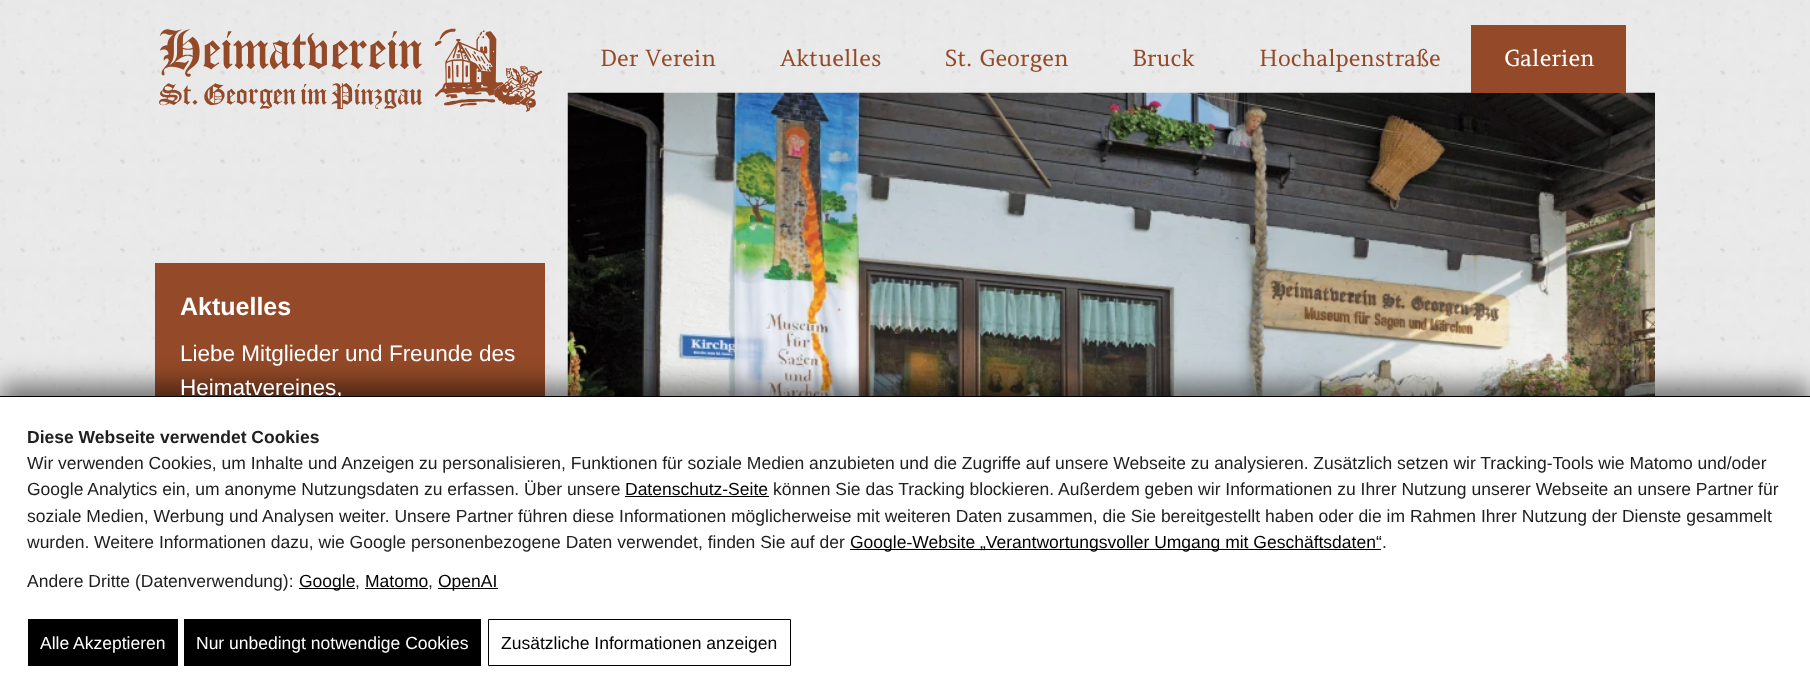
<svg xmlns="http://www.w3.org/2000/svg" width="1810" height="693">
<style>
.a{font:22.5px Amethysta;fill:#944a28}
.b{font:22.5px Amethysta;fill:#fff}
.c{font:bold 25px Liberation Sans;fill:#fff}
.d{font:22.5px Liberation Sans;fill:#fff}
.e{font:bold 17.5px Liberation Sans;fill:#202020}
.f{font:17.5px Liberation Sans;fill:#202020}
.g{font:17.5px Liberation Sans;fill:#000}
.h{font:17.5px Liberation Sans;fill:#fff}
</style>
<rect width="100%" height="100%" fill="#fff"/>
<image href="1.png" x="0" y="0" width="1810" height="396"/>
<image href="2.png" x="159" y="28" width="384" height="84"/>
<image href="3.png" x="567" y="92" width="1088" height="304"/>
<path fill="#944a28" d="M1471 25h155v68H1471z"/>
<path fill="#944a28" d="M155 263h390v133H155z"/>
<path fill="#00000080" filter="blur(12.5px)" d="M0 384h1810v297H0z"/>
<path fill="#fff" d="M0 397h1810v296H0z"/>
<path fill="#000" d="M625 496h144v1H625z"/>
<path fill="#000" d="M850 549h531v1H850z"/>
<path fill="#000" d="M299 588h56v1H299z"/>
<path fill="#000" d="M365 588h63v1H365z"/>
<path fill="#000" d="M438 588h60v1H438z"/>
<path fill="#000" d="M28 619h150v47H28z"/>
<path fill="#000" d="M184 619h297v47H184z"/>
<path fill="none" stroke="#000" d="M488.5 619.5h302v46H488.5z"/>
<text class="a" x="600" y="66">Der Verein</text>
<text class="a" x="780" y="66">Aktuelles</text>
<text class="a" x="945" y="66">St. Georgen</text>
<text class="a" x="1132" y="66">Bruck</text>
<text class="a" x="1259" y="66">Hochalpenstraße</text>
<text class="b" x="1504" y="66">Galerien</text>
<text class="c" x="180" y="315">Aktuelles</text>
<text class="d" x="180" y="361">Liebe Mitglieder und Freunde des</text>
<text class="d" x="180" y="395">Heimatvereines,</text>
<path fill="#000" d="M0 396h1810v1H0z"/>
<text class="e" x="27" y="443">Diese Webseite verwendet Cookies</text>
<text class="f" x="27" y="469">Wir verwenden Cookies, um Inhalte und Anzeigen zu personalisieren, Funktionen für soziale Medien anzubieten und die Zugriffe auf unsere Webseite zu analysieren. Zusätzlich setzen wir Tracking-Tools wie Matomo und/oder</text>
<text class="f" x="27" y="495">Google Analytics ein, um anonyme Nutzungsdaten zu erfassen. Über unsere</text>
<text class="g" x="625" y="495">Datenschutz-Seite</text>
<text class="f" x="773" y="495">können Sie das Tracking blockieren. Außerdem geben wir Informationen zu Ihrer Nutzung unserer Webseite an unsere Partner für</text>
<text class="f" x="27" y="522">soziale Medien, Werbung und Analysen weiter. Unsere Partner führen diese Informationen möglicherweise mit weiteren Daten zusammen, die Sie bereitgestellt haben oder die im Rahmen Ihrer Nutzung der Dienste gesammelt</text>
<text class="f" x="27" y="548">wurden. Weitere Informationen dazu, wie Google personenbezogene Daten verwendet, finden Sie auf der</text>
<text class="g" x="850" y="548">Google‑Website „Verantwortungsvoller Umgang mit Geschäftsdaten“</text>
<text class="f" x="1382" y="548">.</text>
<text class="f" x="27" y="587">Andere Dritte (Datenverwendung):</text>
<text class="g" x="299" y="587">Google</text>
<text class="f" x="355" y="587">,</text>
<text class="g" x="365" y="587">Matomo</text>
<text class="f" x="428" y="587">,</text>
<text class="g" x="438" y="587">OpenAI</text>
<text class="h" x="40" y="649">Alle Akzeptieren</text>
<text class="h" x="196" y="649">Nur unbedingt notwendige Cookies</text>
<text class="g" x="501" y="649">Zusätzliche Informationen anzeigen</text>
</svg>
